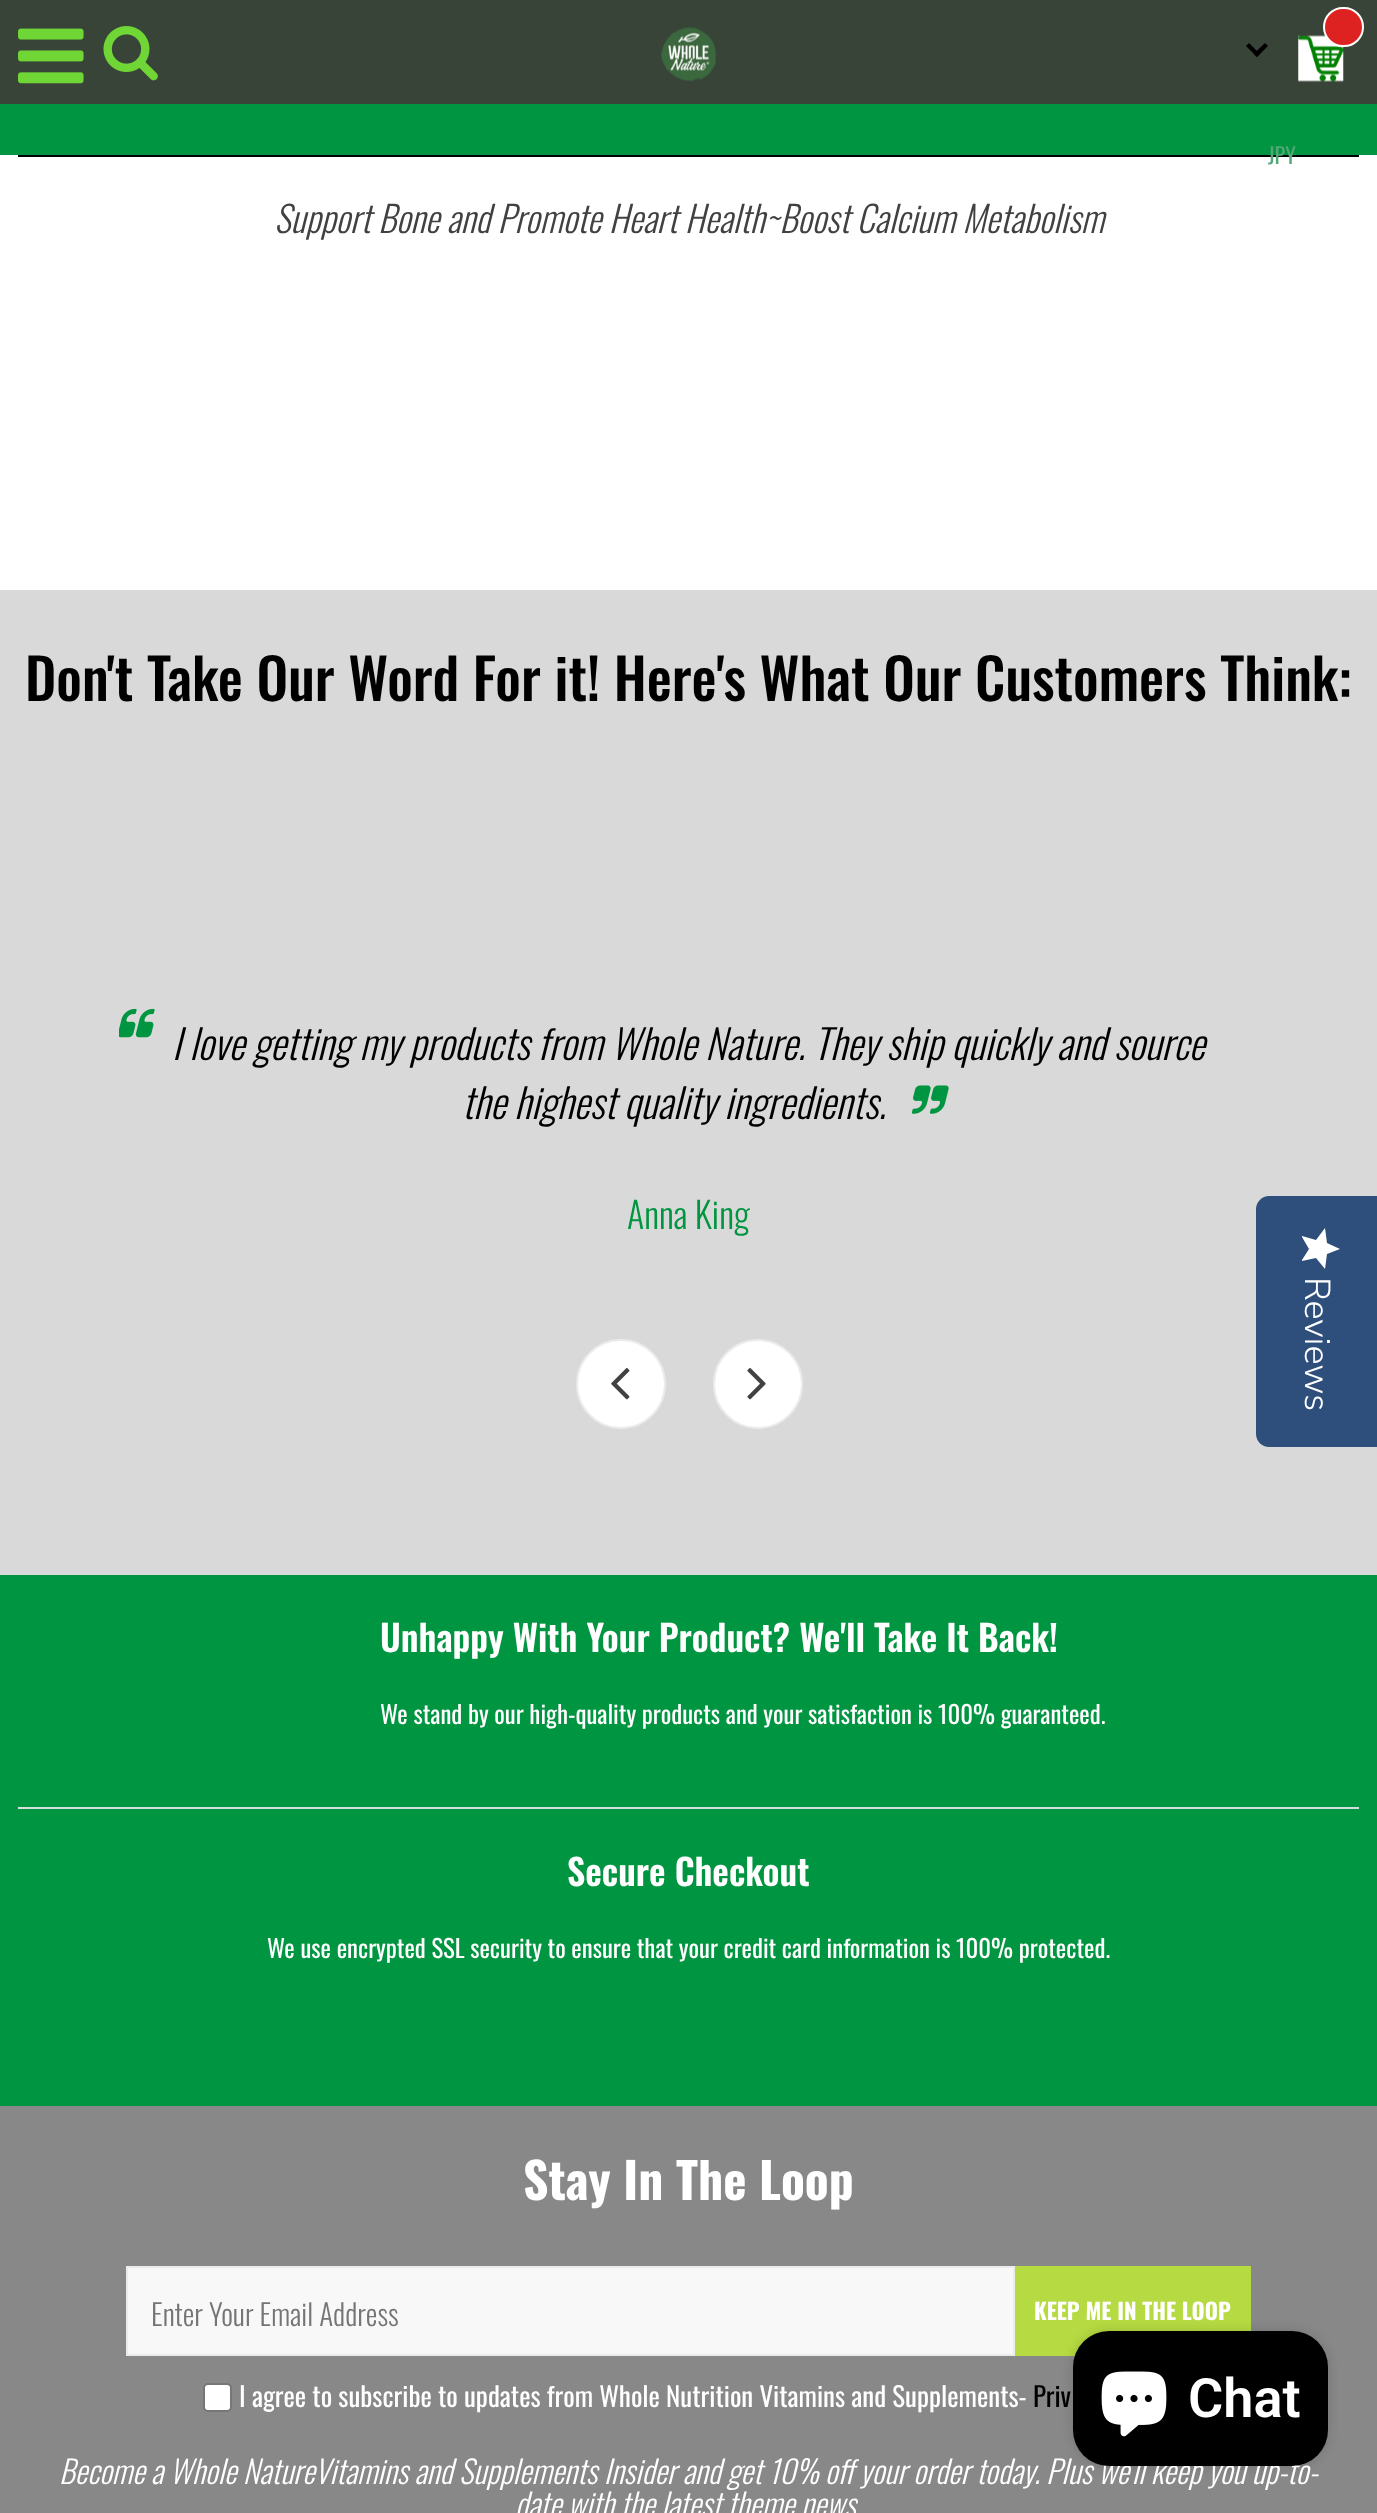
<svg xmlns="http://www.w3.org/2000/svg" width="1377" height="2513">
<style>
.a{font:22px Oswald;fill:#51a876}
.b{font:italic 300 36px Oswald;fill:#414141}
.c{font:500 56.25px Oswald;fill:#000}
.d{font:italic 300 40.5px Oswald;fill:#000}
.e{font:300 36px Oswald;fill:#009540}
.f{font:600 36px Oswald;fill:#fff}
.g{font:24.75px Oswald;fill:#fff}
.h{font:bold 49.5px Oswald;fill:#fff}
.i{font:300 29.25px Oswald;fill:#757575}
.j{font:bold 22.5px Oswald;fill:#fff}
.k{font:27px Oswald;fill:#fff}
.l{font:27px Oswald;fill:#000}
.m{font:italic 300 31.5px Oswald;fill:#fff}
.n{font:300 36px Nunito Sans;fill:#fff}
.o{font:600 54px Roboto;fill:#fff}
</style>
<defs>
<linearGradient id="g1" gradientUnits="userSpaceOnUse" x1="1340" y1="1229" x2="1340" y2="1269"><stop offset="1" stop-color="#fff"/><stop offset="1" stop-color="#eaeaea"/></linearGradient>
</defs>
<rect width="100%" height="100%" fill="#fff"/>
<path fill="#009540" d="M0 104h1377v51H0z"/>
<path fill="#394439" d="M0 0h1377v104H0z"/>
<image href="1.png" x="18" y="28" width="66" height="56"/>
<image href="2.png" x="103" y="26" width="55" height="55"/>
<image href="3.png" x="661" y="27" width="55" height="55"/>
<image href="4.png" x="1298" y="35" width="46" height="47"/>
<rect fill="#de2121" stroke="#fff" stroke-width="2" x="1324" y="8" width="39" height="38" rx="19"/>
<path fill="#000" d="M1265 43l3 3l-11 11l-3.5-3z"/>
<path fill="#000" d="M1249 43l11 11l-3 3l-11-11z"/>
<path fill="#000" d="M18 155h1341v2H18z"/>
<path fill="#dad9d9" d="M0 590h1377v985H0z"/>
<image href="5.png" x="119" y="1008" width="36" height="30"/>
<image href="6.png" x="911" y="1085" width="38" height="29"/>
<circle fill="#fff" stroke="#ebebeb" stroke-width="2" cx="621" cy="1384" r="44"/>
<image href="7.png" x="611" y="1368" width="19" height="32"/>
<circle fill="#fff" stroke="#ebebeb" stroke-width="2" cx="758" cy="1384" r="44"/>
<image href="8.png" x="747" y="1368" width="19" height="32"/>
<path fill="#009540" d="M0 1575h1377v531H0z"/>
<path fill="#dddcdc" d="M18 1807h1341v2H18z"/>
<path fill="#888" d="M0 2106h1377v407H0z"/>
<path fill="#f8f8f8" stroke="#ebebeb" stroke-width="2" d="M127 2267h887v88H127z"/>
<path fill="#b5da42" d="M1015 2266h236v90H1015z"/>
<rect fill="#fff" stroke="#767676" stroke-width="2" x="204" y="2384" width="27" height="27" rx="4"/>
<path fill="#2e4f7c" d="M1377 1196v251h-108c-7 0-13-6-13-13v-225c0-7 6-13 13-13z"/>
<path fill="url(#g1)" d="M1309 1249l-7-12v-1l14 4l9-12l2 15l13 6l-13 5l-2 15l-9-11l-14 3v-1z"/>
<rect fill="#00000026" filter="blur(5.5px)" x="1073" y="2331" width="255" height="135" rx="36"/>
<text class="a" x="1268" y="164">JPY</text>
<text class="b" x="274" y="233">Support Bone and Promote Heart Health~Boost Calcium Metabolism</text>
<text class="c" x="25" y="701">Don't Take Our Word For it! Here's What Our Customers Think:</text>
<text class="d" x="172" y="1060">I love getting my products from Whole Nature. They ship quickly and source</text>
<text class="d" x="462" y="1119">the highest quality ingredients.</text>
<text class="e" x="627" y="1229">Anna King</text>
<text class="f" x="380" y="1652">Unhappy With Your Product? We'll Take It Back!</text>
<text class="g" x="380" y="1724">We stand by our high-quality products and your satisfaction is 100% guaranteed.</text>
<text class="f" x="567" y="1886">Secure Checkout</text>
<text class="g" x="267" y="1958">We use encrypted SSL security to ensure that your credit card information is 100% protected.</text>
<text class="h" x="523" y="2200">Stay In The Loop</text>
<text class="i" x="151" y="2326">Enter Your Email Address</text>
<text class="j" x="1034" y="2320">KEEP ME IN THE LOOP</text>
<text class="k" x="239" y="2407">I agree to subscribe to updates from Whole Nutrition Vitamins and Supplements-</text>
<text class="l" x="1033" y="2407">Priv</text>
<text class="m" x="59" y="2484">Become a Whole NatureVitamins and Supplements Insider and get 10% off your order today. Plus we'll keep you up-to-</text>
<text class="m" x="515" y="2517">date with the latest theme news.</text>
<text class="n" x="1305" y="1277" transform="rotate(90 1305 1277)">Reviews</text>
<rect fill="#000" x="1073" y="2331" width="255" height="135" rx="36"/>
<image href="9.png" x="1101" y="2371" width="66" height="66"/>
<text class="o" x="1188" y="2417">Chat</text>
</svg>
